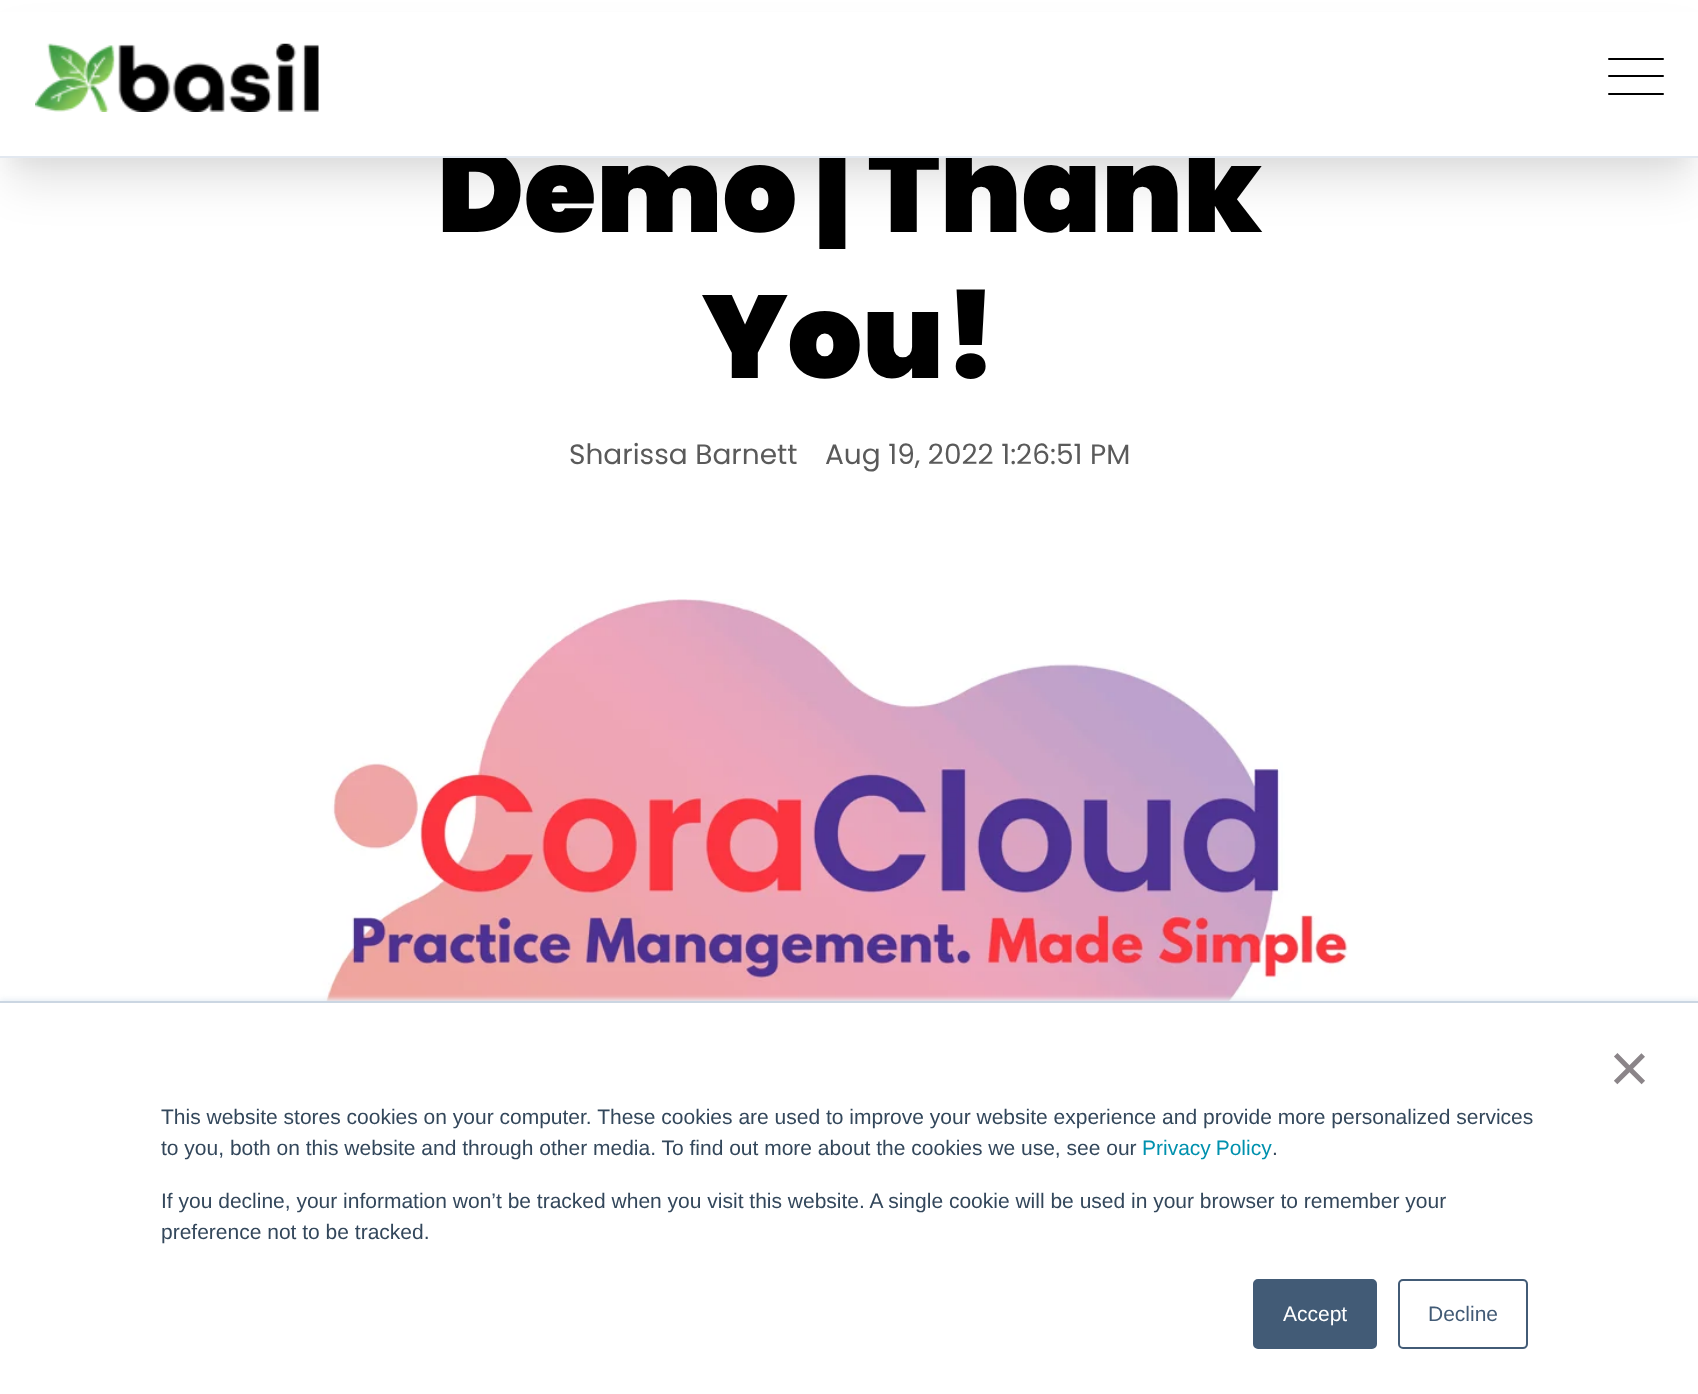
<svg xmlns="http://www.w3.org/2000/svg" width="1698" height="1394">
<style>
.a{font:900 117.25px Poppins;fill:#000}
.b{font:28px Poppins;fill:#5a5a5a}
.c{font:70px Liberation Sans;fill:#8b8589}
.d{font:21px Liberation Sans;fill:#33475b}
.e{font:21px Liberation Sans;fill:#0091ae}
.f{font:21px Liberation Sans;fill:#fff}
.g{font:21px Liberation Sans;fill:#425b76}
</style>
<rect width="100%" height="100%" fill="#fff"/>
<path fill="#0000000a" filter="blur(9px)" d="M9 26h1682v140H9z"/>
<path fill="#0000001a" filter="blur(22px)" d="M9 44h1682v140H9z"/>
<image href="2.png" x="35" y="599" width="1313" height="402"/>
<path fill="#eaf0f6" filter="blur(2.5px)" d="M0 999h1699v394H0z"/>
<path fill="#fff" d="M0 1003h1698v391H0z"/>
<path fill="#cbd6e2" d="M0 1001h1698v2H0z"/>
<rect fill="#425b76" stroke="#425b76" stroke-width="2" x="1254" y="1280" width="122" height="68" rx="4"/>
<rect fill="none" stroke="#425b76" stroke-width="2" x="1399" y="1280" width="128" height="68" rx="4"/>
<text class="a" x="437" y="232">Demo | Thank</text>
<path fill="#fff" d="M0 12h1698v144H0z"/>
<rect fill="#000" x="1608" y="93" width="56" height="2" rx="1"/>
<rect fill="#000" x="1608" y="58" width="56" height="2" rx="1"/>
<rect fill="#000" x="1608" y="75" width="56" height="2" rx="1"/>
<image href="1.png" x="35" y="43" width="284" height="69"/>
<path fill="#e2e8f0" d="M0 156h1698v2H0z"/>
<text class="a" x="702" y="378">You!</text>
<text class="b" x="569" y="464">Sharissa Barnett</text>
<text class="b" x="825" y="464">Aug 19, 2022 1:26:51 PM</text>
<text class="c" x="1609" y="1092">×</text>
<text class="d" x="161" y="1124">This website stores cookies on your computer. These cookies are used to improve your website experience and provide more personalized services</text>
<text class="d" x="161" y="1155">to you, both on this website and through other media. To find out more about the cookies we use, see our</text>
<text class="e" x="1142" y="1155" word-spacing="-1">Privacy Policy</text>
<text class="d" x="1272" y="1155">.</text>
<text class="d" x="161" y="1208">If you decline, your information won’t be tracked when you visit this website. A single cookie will be used in your browser to remember your</text>
<text class="d" x="161" y="1239">preference not to be tracked.</text>
<text class="f" x="1283" y="1321">Accept</text>
<text class="g" x="1428" y="1321">Decline</text>
</svg>
